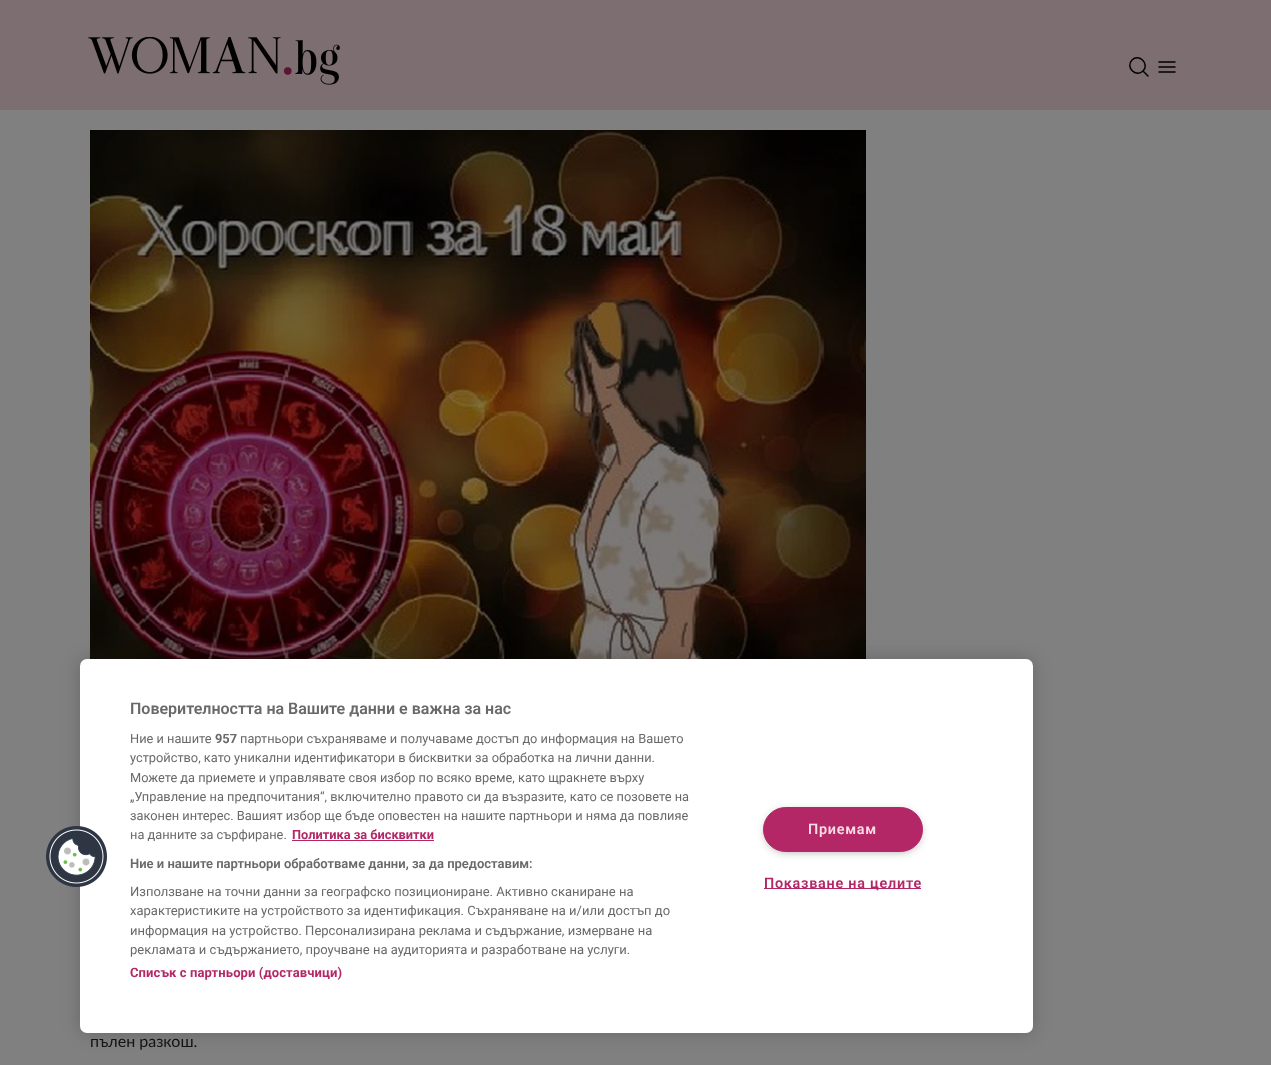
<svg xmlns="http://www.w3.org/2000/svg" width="1271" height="1065">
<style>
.a{font:600 16px Roboto;fill:#696969}
.b{font:12.8px Roboto;fill:#696969}
.c{font:bold 12.8px Roboto;fill:#696969}
.d{font:bold 12.8px Roboto;fill:#b32767}
.e{font:600 13px Roboto;fill:#696969}
.f{font:13px Roboto;fill:#696969}
.g{font:bold 13px Roboto;letter-spacing:0.1px;fill:#b32767}
.h{font:600 14.4px Roboto;letter-spacing:0.75px;fill:#fadce4}
.i{font:600 14.4px Roboto;letter-spacing:0.75px;fill:#b32767}
.j{font:16px Lato;fill:#111315}
</style>
<rect width="100%" height="100%" fill="#808080"/>
<image href="3.png" x="90" y="130" width="776" height="529"/>
<rect fill="#00000033" filter="blur(9px)" x="80" y="659" width="953" height="374" rx="7"/>
<rect fill="#fff" x="80" y="659" width="953" height="374" rx="7"/>
<image href="1.png" x="46" y="826" width="61" height="61"/>
<path fill="#b32767" d="M292 840h142v1H292z"/>
<rect fill="#999" filter="blur(5px)" x="766" y="812" width="154" height="39" rx="19.5"/>
<rect fill="#b32767" stroke="#b32767" x="763.5" y="807.5" width="159" height="44" rx="22"/>
<path fill="#b32767" d="M764 888h157v1H764z"/>
<path fill="#7d6e72" d="M0 0h1271v110H0z"/>
<image href="2.png" x="88" y="37" width="252" height="48"/>
<path fill="none" stroke="#000" stroke-width="1.5" stroke-linecap="round" stroke-linejoin="round" d="M1148 76l-5-5m0 0c7-7-4-18-11-11c-7 7 4 18 11 11zm16-9h16m-16 5h16m-16 5h16"/>
<text class="a" x="130" y="714">Поверителността на Вашите данни е важна за нас</text>
<text class="b" x="130" y="743">Ние и нашите</text>
<text class="c" x="215" y="743">957</text>
<text class="b" x="240" y="743">партньори съхраняваме и получаваме достъп до информация на Вашето</text>
<text class="b" x="130" y="762">устройство, като уникални идентификатори в бисквитки за обработка на лични данни.</text>
<text class="b" x="130" y="782">Можете да приемете и управлявате своя избор по всяко време, като щракнете върху</text>
<text class="b" x="130" y="801">„Управление на предпочитания“, включително правото си да възразите, като се позовете на</text>
<text class="b" x="130" y="820">законен интерес. Вашият избор ще бъде оповестен на нашите партньори и няма да повлияе</text>
<text class="b" x="130" y="839">на данните за сърфиране.</text>
<text class="d" x="292" y="839">Политика за бисквитки</text>
<text class="e" x="130" y="868">Ние и нашите партньори обработваме данни, за да предоставим:</text>
<text class="f" x="130" y="896">Използване на точни данни за географско позициониране. Активно сканиране на</text>
<text class="f" x="130" y="915">характеристиките на устройството за идентификация. Съхраняване на и/или достъп до</text>
<text class="f" x="130" y="935">информация на устройство. Персонализирана реклама и съдържание, измерване на</text>
<text class="f" x="130" y="954">рекламата и съдържанието, проучване на аудиторията и разработване на услуги.</text>
<text class="g" x="130" y="977">Списък с партньори (доставчици)</text>
<text class="h" x="808" y="834">Приемам</text>
<text class="i" x="764" y="888">Показване на целите</text>
<text class="j" x="90" y="1047">пълен разкош.</text>
</svg>
